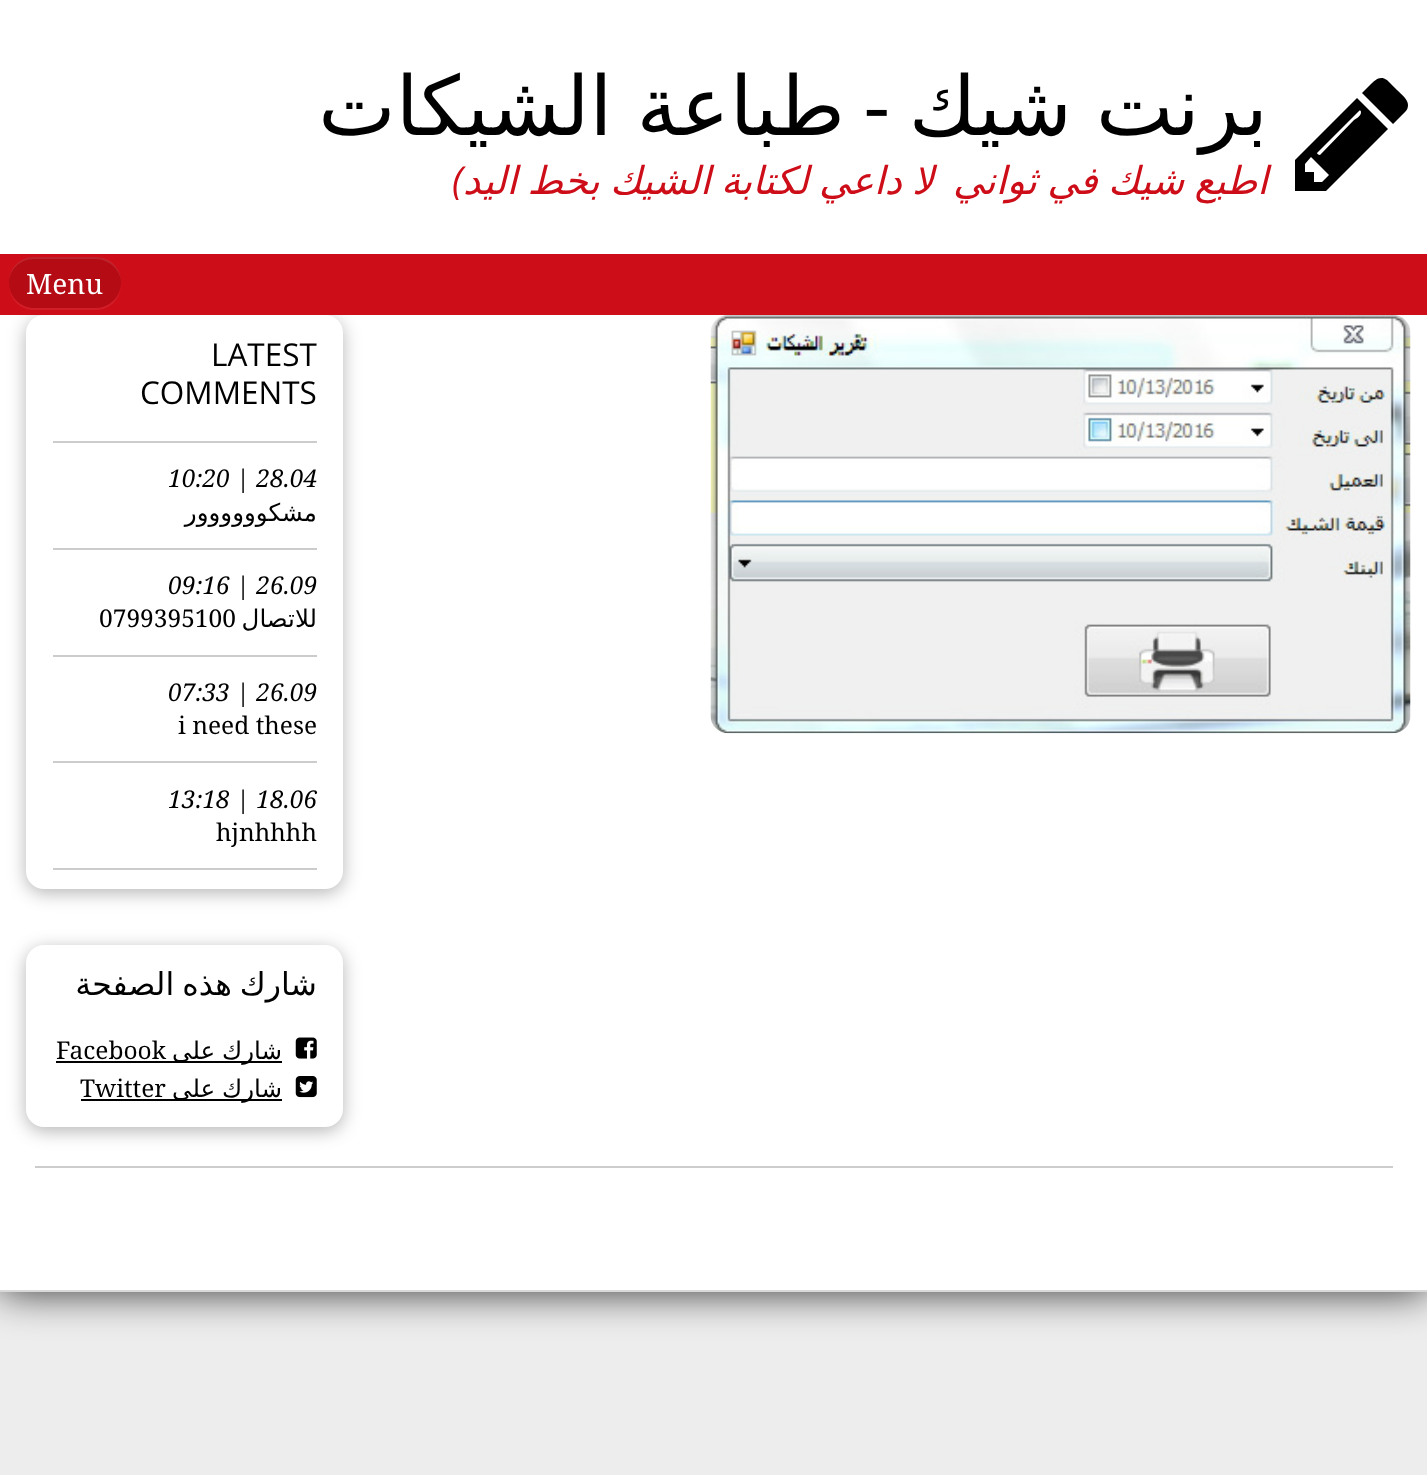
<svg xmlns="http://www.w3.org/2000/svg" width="1427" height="1475">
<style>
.a{font:82.25px DejaVu Sans;direction:rtl;fill:#000}
.b{font:82.25px Open Sans;direction:rtl;fill:#000}
.c{font:italic 38.5px DejaVu Sans;direction:rtl;fill:#cd0d18}
.d{font:italic 38.5px Open Sans;direction:rtl;fill:#cd0d18}
.e{font:28px Noto Serif;fill:#fff}
.f{font:31.5px Open Sans;fill:#000}
.g{font:italic 24.5px Noto Serif;fill:#000}
.h{font:24.5px DejaVu Sans;direction:rtl;fill:#000}
.i{font:24.5px Noto Serif;fill:#000}
.j{font:31.5px DejaVu Sans;direction:rtl;fill:#000}
</style>
<rect width="100%" height="100%" fill="#ededed"/>
<path fill="#000000cc" filter="blur(21px)" d="M0 0h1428v1292H0z"/>
<path fill="#fff" d="M0 0h1427v1290H0z"/>
<path fill="#d9d9d9" d="M0 1290h1427v2H0z"/>
<path fill="#000" d="M1322 182l7-7l-18-18l-6 7v8h9v10zm39-70c0-1-1-2-2-1l-42 42c0 1 2 2 3 2l34-35c3-2 7-4 7-8zm-4-14l31 31l-62 62h-31v-31zm51 7c0 3-1 5-3 7l-12 12l-31-31l8-8c5-5 10-10 17-5l10 10c4 4 11 9 11 15z"/>
<rect fill="#0000004a" filter="blur(9px)" x="26" y="319" width="317" height="574" rx="18"/>
<path fill="#cd0d18" d="M0 254h1427v61H0z"/>
<path fill="#d11f29" d="M9 287c1 13 12 23 25 23h62c14 0 25-11 25-26v-4v3c0 14-12 25-26 25h-61c-12 0-23-9-25-21z"/>
<rect fill="#b50b15" x="9" y="257" width="112" height="51" rx="25.5"/>
<path fill="#ffffff1a" d="M34 259h61c14 0 26 11 26 24v-1c0-14-11-25-25-25h-62c-14 0-25 11-25 25v1c0-13 11-24 25-24z"/>
<image href="1.png" x="710" y="315" width="701" height="419"/>
<rect fill="#fff" x="26" y="315" width="317" height="574" rx="18"/>
<path fill="#ccc" d="M53 441h264v2H53z"/>
<path fill="#ccc" d="M53 548h264v2H53z"/>
<path fill="#ccc" d="M53 655h264v2H53z"/>
<path fill="#ccc" d="M53 761h264v2H53z"/>
<path fill="#ccc" d="M53 868h264v2H53z"/>
<rect fill="#0000004a" filter="blur(9px)" x="26" y="949" width="317" height="182" rx="18"/>
<rect fill="#fff" x="26" y="945" width="317" height="182" rx="18"/>
<image href="2.png" x="295" y="1037" width="22" height="22"/>
<path fill="#000" d="M56 1061h226v2H56z"/>
<image href="3.png" x="295" y="1076" width="22" height="22"/>
<path fill="#000" d="M81 1099h201v2H81z"/>
<path fill="#ccc" d="M35 1166h1358v2H35z"/>
<text class="a" x="1268" y="135" word-spacing="-2">برنت شيك</text>
<text class="b" x="890" y="135">-</text>
<text class="a" x="845" y="135" word-spacing="-2">طباعة الشيكات</text>
<text class="c" x="1268" y="194" word-spacing="-2">اطبع شيك في ثواني</text>
<text class="c" x="934" y="194" word-spacing="-2">لا داعي لكتابة الشيك بخط اليد</text>
<text class="d" x="463" y="194">)</text>
<text class="e" x="26" y="294">Menu</text>
<text class="f" x="211" y="366">LATEST</text>
<text class="f" x="140" y="404">COMMENTS</text>
<text class="g" x="168" y="487">10:20 | 28.04</text>
<text class="h" x="317" y="521">مشكوووووور</text>
<text class="g" x="168" y="594">09:16 | 26.09</text>
<text class="h" x="317" y="627">للاتصال</text>
<text class="i" x="99" y="627">0799395100</text>
<text class="g" x="168" y="701">07:33 | 26.09</text>
<text class="i" x="178" y="734">i need these</text>
<text class="g" x="168" y="808">13:18 | 18.06</text>
<text class="i" x="216" y="841">hjnhhhh</text>
<text class="j" x="317" y="995" word-spacing="-2">شارك هذه الصفحة</text>
<text class="h" x="282" y="1059" word-spacing="-1">شارك على</text>
<text class="i" x="56" y="1059">Facebook</text>
<text class="h" x="282" y="1097" word-spacing="-1">شارك على</text>
<text class="i" x="80" y="1097">Twitter</text>
</svg>
